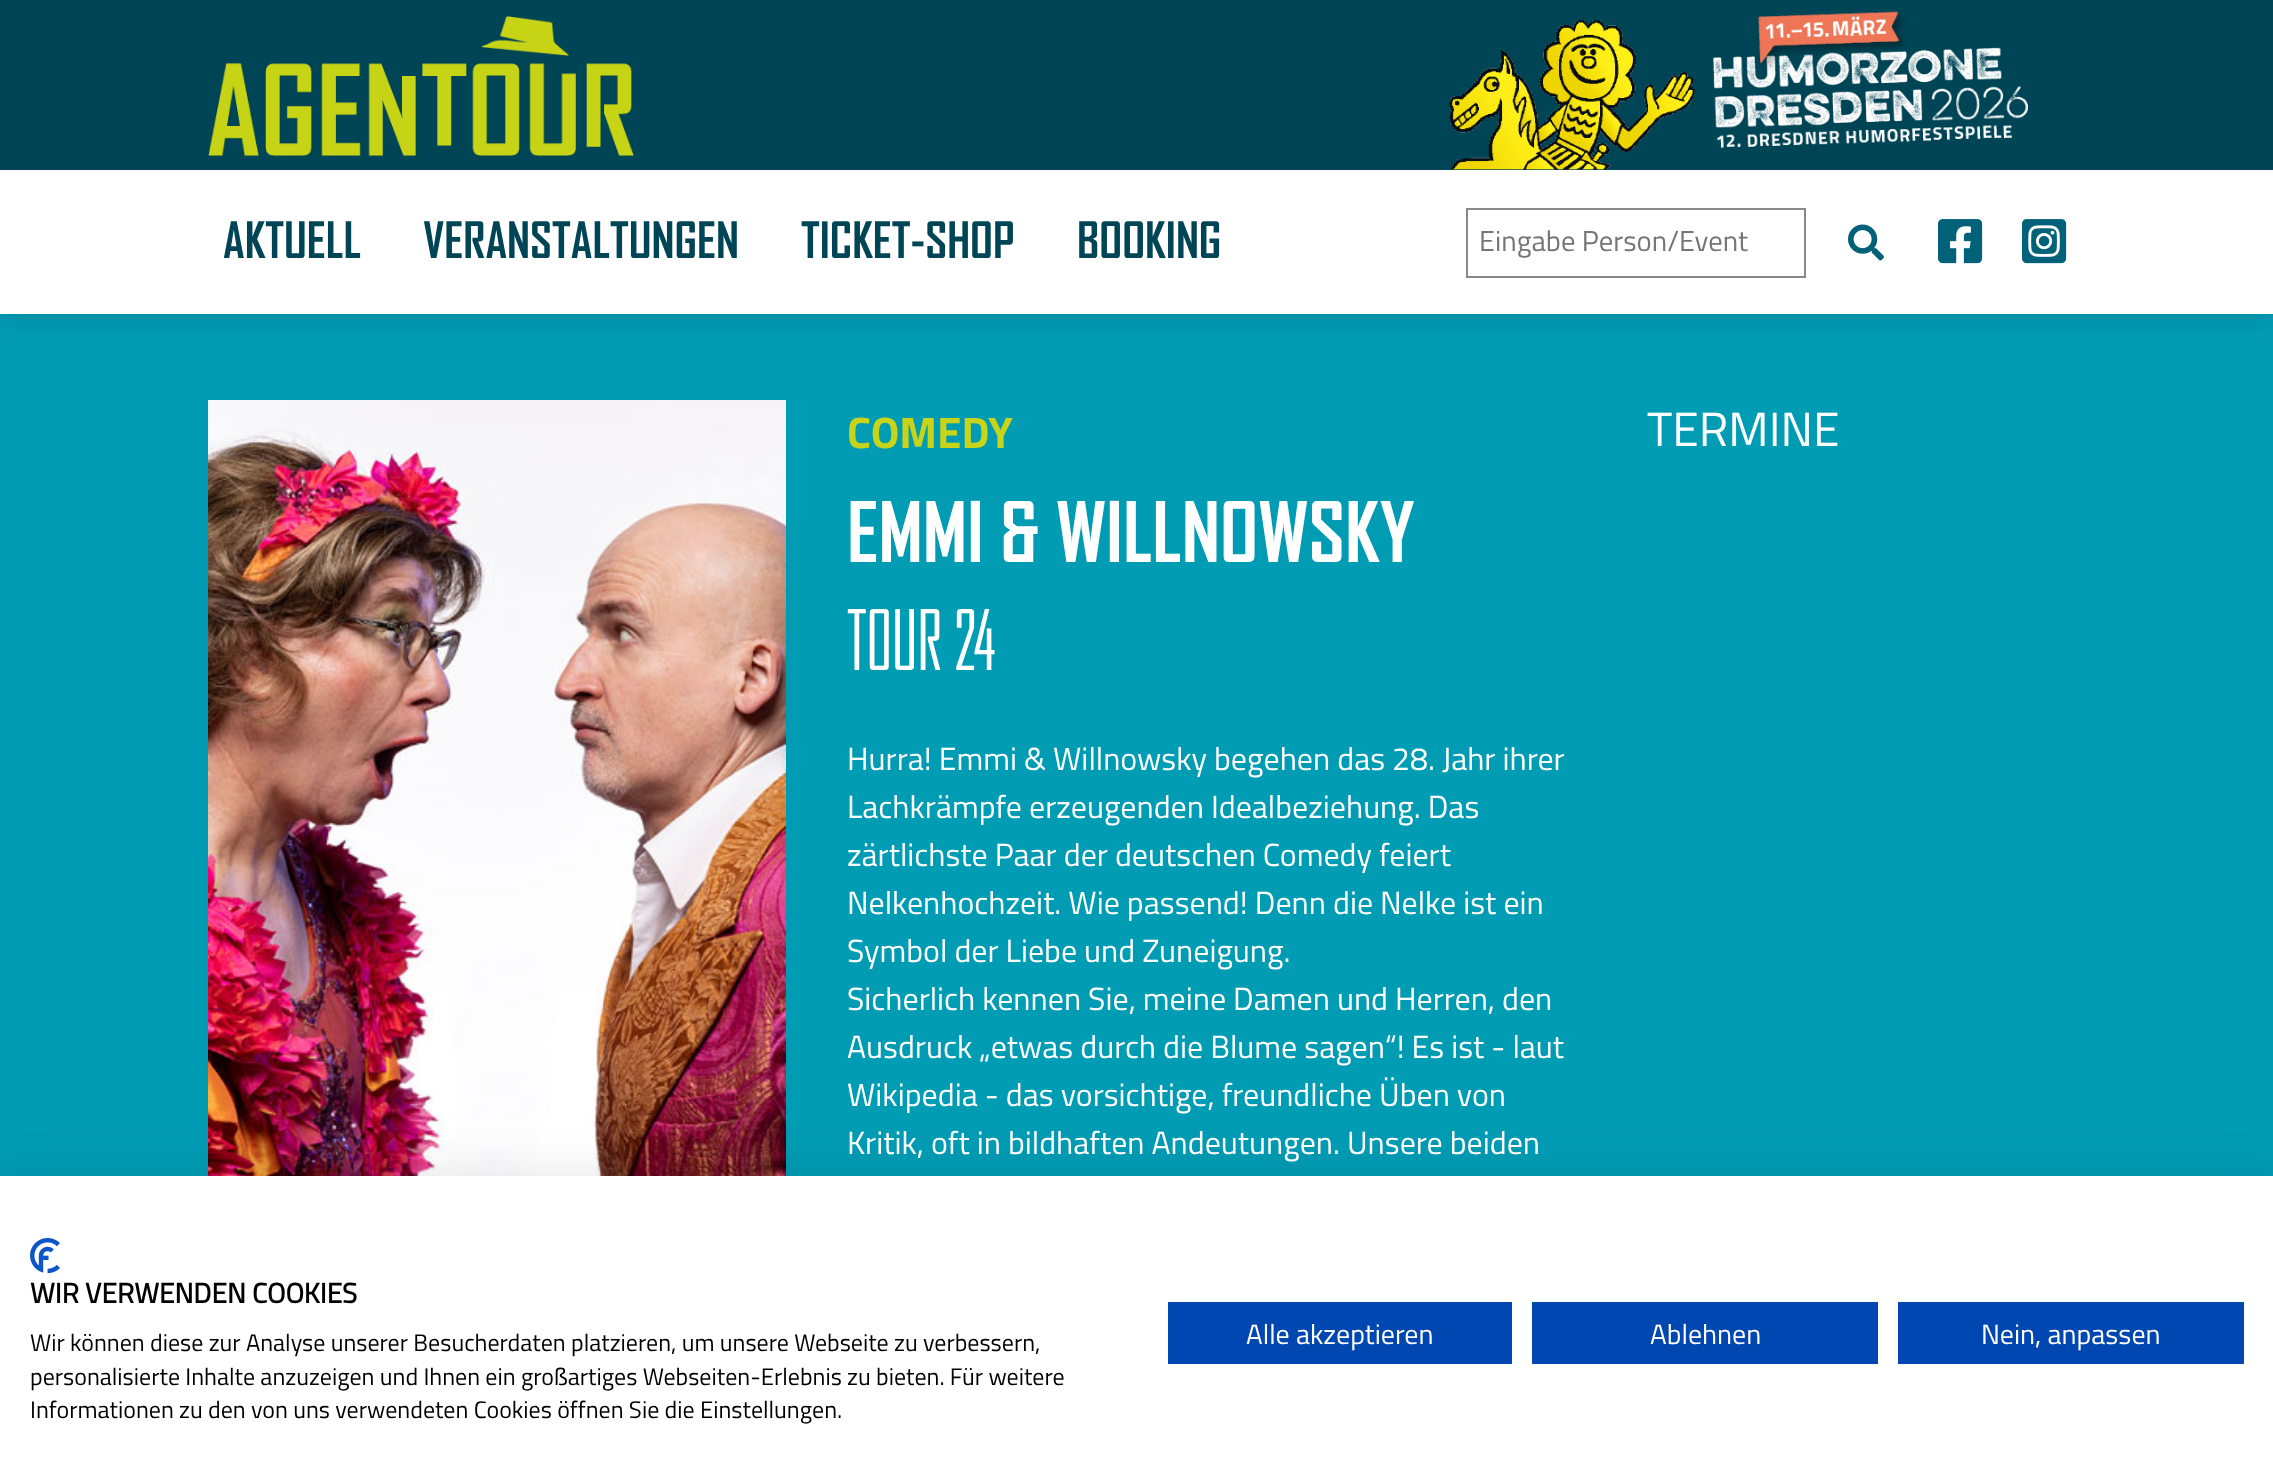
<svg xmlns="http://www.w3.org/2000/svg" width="2273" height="1481">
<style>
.a{font:bold 48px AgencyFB;fill:#004556}
.b{font:28.75px Titillium Web;fill:#757575}
.c{font:bold 44px Titillium Web;fill:#c8d419}
.d{font:bold 80px AgencyFB;fill:#fff}
.e{font:80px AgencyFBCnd;fill:#fff}
.f{font:32px Titillium Web;fill:#fff}
.g{font:48px Titillium Web;fill:#fff}
.h{font:bold 28px 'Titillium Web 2';fill:#000}
.i{font:24px Titillium Web;fill:#000}
.j{font:28px Titillium Web;fill:#fff}
</style>
<rect width="100%" height="100%" fill="#009cb4"/>
<path fill="#00000014" filter="blur(12px)" d="M0 8h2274v314H0z"/>
<path fill="#004556" d="M0 0h2273v170H0z"/>
<image href="1.png" x="208" y="16" width="426" height="140"/>
<image href="2.png" x="1449" y="11" width="579" height="159"/>
<path fill="#fff" d="M0 170h2273v144H0z"/>
<path fill="none" stroke="#888" stroke-width="2" d="M1467 209h338v68H1467z"/>
<image href="3.png" x="1848" y="224" width="36" height="37"/>
<image href="4.png" x="1938" y="219" width="45" height="45"/>
<image href="5.png" x="2022" y="219" width="45" height="45"/>
<image href="6.png" x="208" y="400" width="578" height="776"/>
<path fill="#0000001a" filter="blur(24px)" d="M0 1176h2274v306H0z"/>
<path fill="#fff" d="M0 1176h2273v305H0z"/>
<image href="7.png" x="30" y="1238" width="30" height="36"/>
<path fill="#0047b2" d="M1168 1302h344v62H1168z"/>
<path fill="#0047b2" d="M1532 1302h346v62H1532z"/>
<path fill="#0047b2" d="M1898 1302h346v62H1898z"/>
<text class="a" x="223" y="258">AKTUELL</text>
<text class="a" x="423" y="258">VERANSTALTUNGEN</text>
<text class="a" x="801" y="258">TICKET-SHOP</text>
<text class="a" x="1077" y="258">BOOKING</text>
<text class="b" x="1479" y="251">Eingabe Person/Event</text>
<text class="c" x="847" y="448">COMEDY</text>
<text class="d" x="847" y="562">EMMI &amp; WILLNOWSKY</text>
<text class="e" x="847" y="670">TOUR 24</text>
<text class="f" x="847" y="770">Hurra! Emmi &amp; Willnowsky begehen das 28. Jahr ihrer</text>
<text class="f" x="847" y="818">Lachkrämpfe erzeugenden Idealbeziehung. Das</text>
<text class="f" x="847" y="866">zärtlichste Paar der deutschen Comedy feiert</text>
<text class="f" x="847" y="914">Nelkenhochzeit. Wie passend! Denn die Nelke ist ein</text>
<text class="f" x="847" y="962">Symbol der Liebe und Zuneigung.</text>
<text class="f" x="847" y="1010">Sicherlich kennen Sie, meine Damen und Herren, den</text>
<text class="f" x="847" y="1058">Ausdruck „etwas durch die Blume sagen“! Es ist - laut</text>
<text class="f" x="847" y="1106">Wikipedia - das vorsichtige, freundliche Üben von</text>
<text class="f" x="847" y="1154">Kritik, oft in bildhaften Andeutungen. Unsere beiden</text>
<text class="g" x="1647" y="446">TERMINE</text>
<text class="h" x="30" y="1303">WIR VERWENDEN COOKIES</text>
<text class="i" x="30" y="1351">Wir können diese zur Analyse unserer Besucherdaten platzieren, um unsere Webseite zu verbessern,</text>
<text class="i" x="30" y="1385">personalisierte Inhalte anzuzeigen und Ihnen ein großartiges Webseiten-Erlebnis zu bieten. Für weitere</text>
<text class="i" x="30" y="1418">Informationen zu den von uns verwendeten Cookies öffnen Sie die Einstellungen.</text>
<text class="j" x="1246" y="1344">Alle akzeptieren</text>
<text class="j" x="1650" y="1344">Ablehnen</text>
<text class="j" x="1981" y="1344">Nein, anpassen</text>
</svg>
